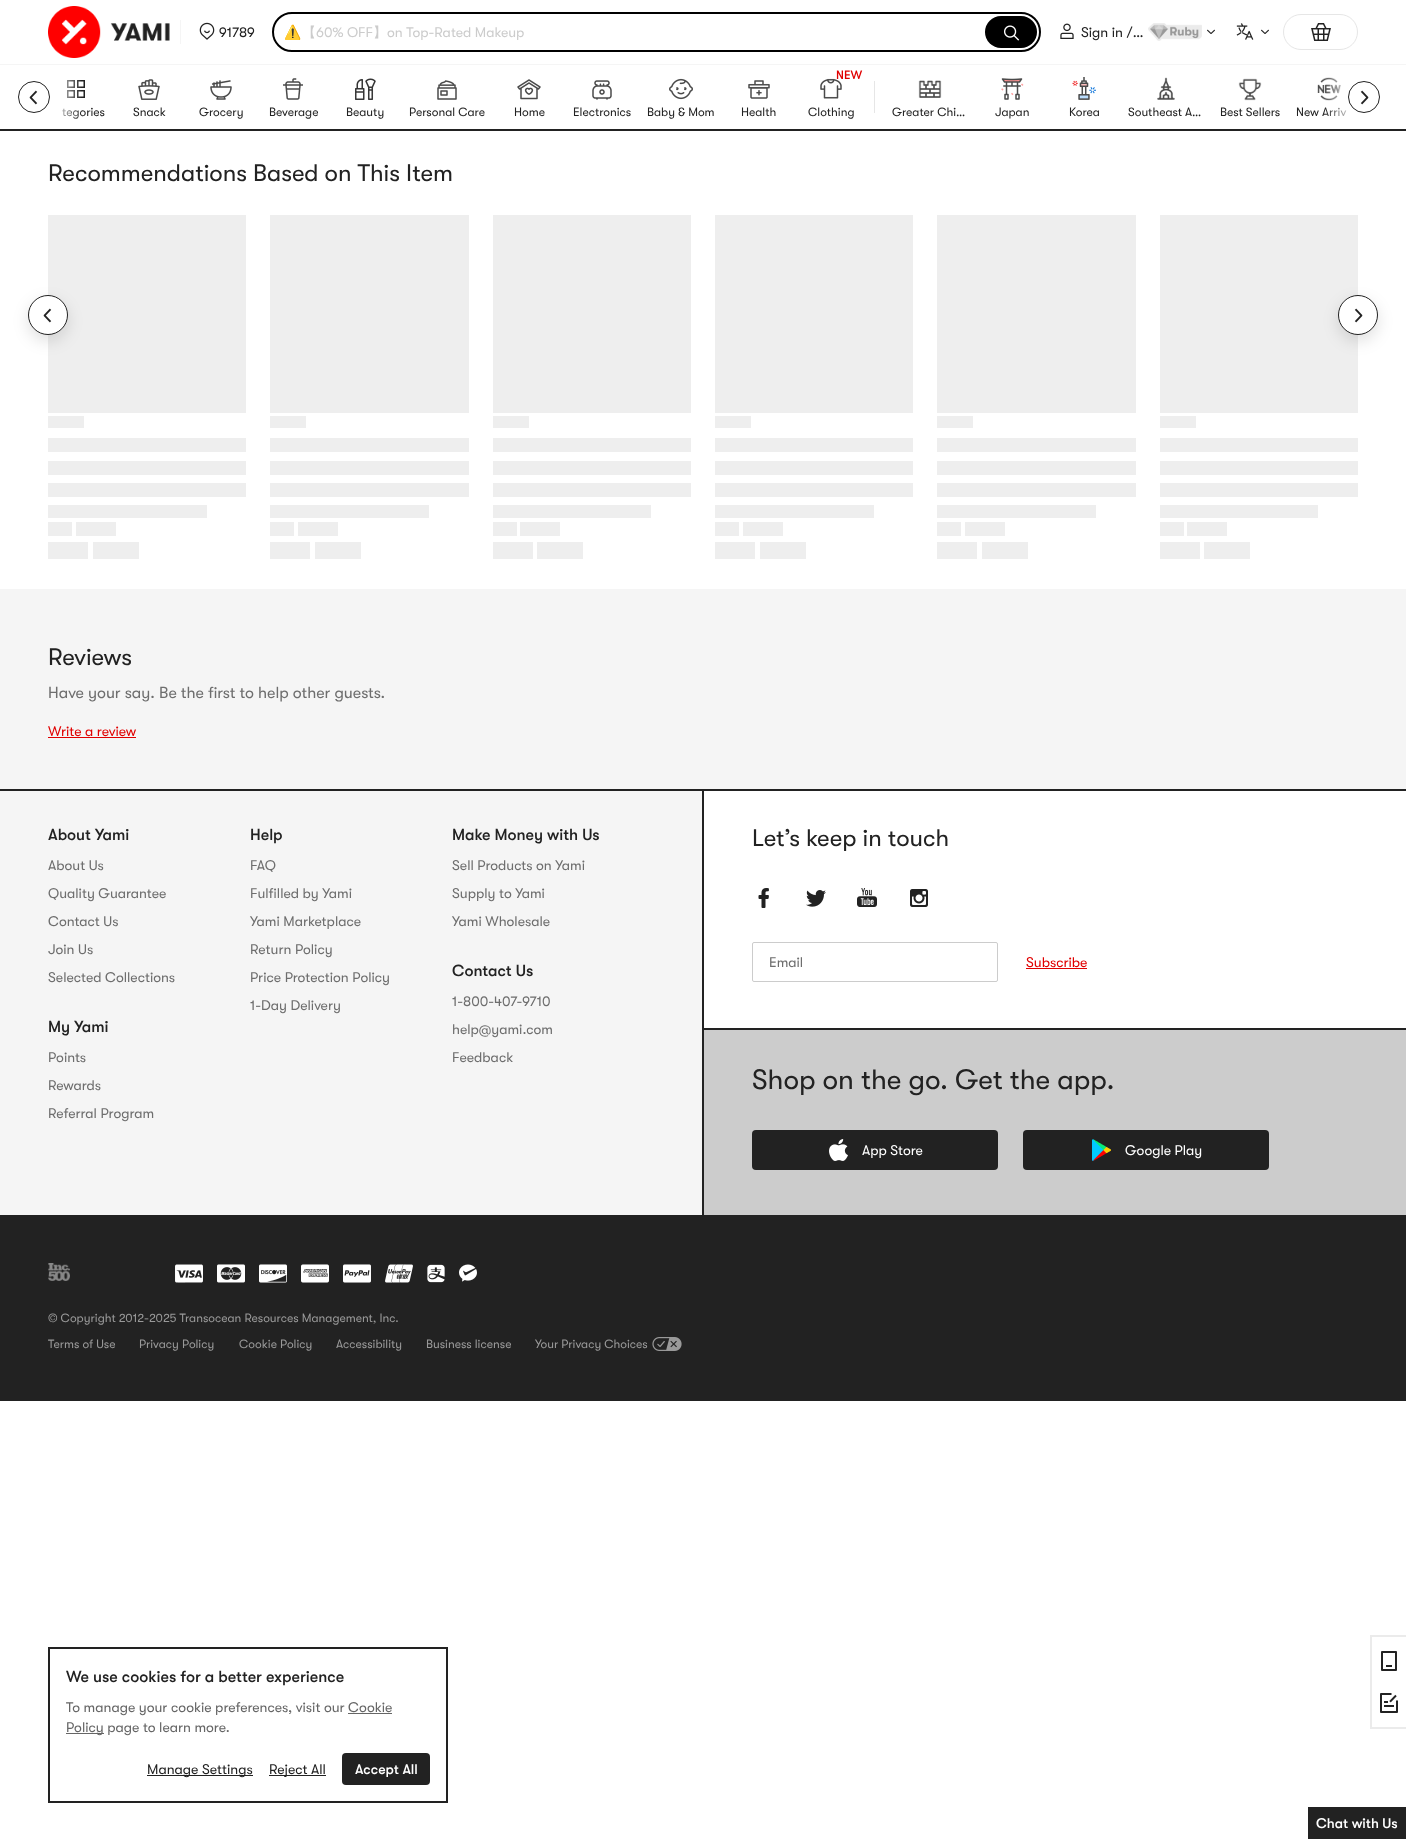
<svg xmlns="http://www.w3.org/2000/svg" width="1406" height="1839">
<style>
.a{font:14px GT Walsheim;fill:#222}
.b{font:14px Noto Color Emoji;fill:#ccc}
.c{font:500 14px WenQuanYi Zen Hei;fill:#ccc}
.d{font:14px GT Walsheim;fill:#ccc}
.e{font:12px GT Walsheim;fill:#222}
.f{font:500 12px GT Walsheim;fill:#e00000}
.g{font:24px GT Walsheim;fill:#222}
.h{font:16px GT Walsheim;fill:#6e6e6e}
.i{font:14px GT Walsheim;fill:#e00000}
.j{font:500 16px GT Walsheim;fill:#222}
.k{font:14px GT Walsheim;fill:#6e6e6e}
.l{font:28px GT Walsheim;fill:#222}
.m{font:14px GT Walsheim;fill:#fff}
.n{font:12px GT Walsheim;fill:#999}
.o{font:14px GT Walsheim;fill:#666}
.p{font:500 14px GT Walsheim;fill:#fff}
</style>
<defs>
<linearGradient id="g1" gradientUnits="userSpaceOnUse" x1="18" y1="96" x2="82" y2="96"><stop offset="0.5" stop-color="#fff"/><stop offset="1" stop-color="#fff" stop-opacity="0"/></linearGradient>
<linearGradient id="g2" gradientUnits="userSpaceOnUse" x1="1388" y1="96" x2="1324" y2="96"><stop offset="0.5" stop-color="#fff"/><stop offset="1" stop-color="#fff" stop-opacity="0"/></linearGradient>
</defs>
<rect width="100%" height="100%" fill="#fff"/>
<path fill="#f5f5f5" d="M0 64h1406v1H0z"/>
<image href="1.png" x="48" y="6" width="122" height="52"/>
<path fill="#f5f5f5" d="M180 20h1v24H180z"/>
<image href="2.png" x="199" y="22" width="16" height="18"/>
<rect fill="none" stroke="#000" stroke-width="2" x="273" y="13" width="767" height="38" rx="19"/>
<rect fill="#000" x="985" y="16" width="52" height="32" rx="16"/>
<image href="3.png" x="1004" y="25" width="16" height="16"/>
<image href="4.png" x="1060" y="23" width="14" height="16"/>
<image href="5.png" x="1148" y="23" width="54" height="18"/>
<image href="6.png" x="1207" y="29" width="8" height="5"/>
<image href="7.png" x="1236" y="23" width="18" height="17"/>
<image href="6.png" x="1261" y="29" width="8" height="5"/>
<rect fill="none" stroke="#e6e6e6" x="1283.5" y="14.5" width="74" height="35" rx="17.5"/>
<image href="8.png" x="1311" y="23" width="20" height="18"/>
<path fill="#222" d="M0 129h1406v2H0z"/>
<image href="9.png" x="67" y="80" width="18" height="18"/>
<image href="10.png" x="138" y="79" width="22" height="21"/>
<image href="11.png" x="210" y="80" width="22" height="20"/>
<image href="12.png" x="283" y="78" width="20" height="22"/>
<image href="13.png" x="355" y="78" width="21" height="22"/>
<image href="14.png" x="437" y="80" width="20" height="20"/>
<image href="15.png" x="517" y="79" width="24" height="21"/>
<image href="16.png" x="592" y="80" width="20" height="20"/>
<image href="17.png" x="669" y="78" width="24" height="22"/>
<image href="18.png" x="748" y="80" width="22" height="19"/>
<image href="19.png" x="820" y="78" width="22" height="21"/>
<path fill="#e6e6e6" d="M874 81h1v32H874z"/>
<image href="20.png" x="918" y="80" width="24" height="18"/>
<image href="21.png" x="1001" y="78" width="23" height="22"/>
<image href="22.png" x="1072" y="77" width="24" height="23"/>
<image href="23.png" x="1157" y="77" width="18" height="23"/>
<image href="24.png" x="1238" y="78" width="24" height="23"/>
<image href="25.png" x="1317" y="77" width="24" height="24"/>
<circle fill="none" stroke="#222" cx="34" cy="97" r="15.5"/>
<image href="26.png" x="29" y="90" width="9" height="15"/>
<circle fill="none" stroke="#222" cx="1364" cy="97" r="15.5"/>
<image href="27.png" x="1360" y="90" width="9" height="15"/>
<path fill="#eee" d="M48 215h198v198H48z"/>
<path fill="#eee" d="M48 416h36v12H48z"/>
<path fill="#eee" d="M48 438h198v14H48z"/>
<path fill="#eee" d="M48 461h198v14H48z"/>
<path fill="#eee" d="M48 483h198v14H48z"/>
<path fill="#eee" d="M48 505h159v13H48z"/>
<path fill="#eee" d="M48 522h24v14H48z"/>
<path fill="#eee" d="M76 522h40v14H76z"/>
<path fill="#eee" d="M48 542h40v17H48z"/>
<path fill="#eee" d="M93 542h46v17H93z"/>
<path fill="#eee" d="M270 215h199v198H270z"/>
<path fill="#eee" d="M270 416h36v12H270z"/>
<path fill="#eee" d="M270 438h199v14H270z"/>
<path fill="#eee" d="M270 461h199v14H270z"/>
<path fill="#eee" d="M270 483h199v14H270z"/>
<path fill="#eee" d="M270 505h159v13H270z"/>
<path fill="#eee" d="M270 522h24v14H270z"/>
<path fill="#eee" d="M298 522h40v14H298z"/>
<path fill="#eee" d="M270 542h40v17H270z"/>
<path fill="#eee" d="M315 542h46v17H315z"/>
<path fill="#eee" d="M493 215h198v198H493z"/>
<path fill="#eee" d="M493 416h36v12H493z"/>
<path fill="#eee" d="M493 438h198v14H493z"/>
<path fill="#eee" d="M493 461h198v14H493z"/>
<path fill="#eee" d="M493 483h198v14H493z"/>
<path fill="#eee" d="M493 505h158v13H493z"/>
<path fill="#eee" d="M493 522h24v14H493z"/>
<path fill="#eee" d="M520 522h40v14H520z"/>
<path fill="#eee" d="M493 542h40v17H493z"/>
<path fill="#eee" d="M537 542h46v17H537z"/>
<path fill="#eee" d="M715 215h198v198H715z"/>
<path fill="#eee" d="M715 416h36v12H715z"/>
<path fill="#eee" d="M715 438h198v14H715z"/>
<path fill="#eee" d="M715 461h198v14H715z"/>
<path fill="#eee" d="M715 483h198v14H715z"/>
<path fill="#eee" d="M715 505h159v13H715z"/>
<path fill="#eee" d="M715 522h24v14H715z"/>
<path fill="#eee" d="M743 522h40v14H743z"/>
<path fill="#eee" d="M715 542h40v17H715z"/>
<path fill="#eee" d="M760 542h46v17H760z"/>
<path fill="#eee" d="M937 215h199v198H937z"/>
<path fill="#eee" d="M937 416h36v12H937z"/>
<path fill="#eee" d="M937 438h199v14H937z"/>
<path fill="#eee" d="M937 461h199v14H937z"/>
<path fill="#eee" d="M937 483h199v14H937z"/>
<path fill="#eee" d="M937 505h159v13H937z"/>
<path fill="#eee" d="M937 522h24v14H937z"/>
<path fill="#eee" d="M965 522h40v14H965z"/>
<path fill="#eee" d="M937 542h40v17H937z"/>
<path fill="#eee" d="M982 542h46v17H982z"/>
<path fill="#eee" d="M1160 215h198v198H1160z"/>
<path fill="#eee" d="M1160 416h36v12H1160z"/>
<path fill="#eee" d="M1160 438h198v14H1160z"/>
<path fill="#eee" d="M1160 461h198v14H1160z"/>
<path fill="#eee" d="M1160 483h198v14H1160z"/>
<path fill="#eee" d="M1160 505h158v13H1160z"/>
<path fill="#eee" d="M1160 522h24v14H1160z"/>
<path fill="#eee" d="M1187 522h40v14H1187z"/>
<path fill="#eee" d="M1160 542h40v17H1160z"/>
<path fill="#eee" d="M1204 542h46v17H1204z"/>
<rect fill="#0000001f" filter="blur(8px)" x="28" y="301" width="40" height="40" rx="20"/>
<circle fill="#fff" stroke="#222" cx="48" cy="315" r="19.5"/>
<image href="26.png" x="43" y="308" width="9" height="15"/>
<rect fill="#0000001f" filter="blur(8px)" x="1338" y="301" width="40" height="40" rx="20"/>
<circle fill="#fff" stroke="#222" cx="1358" cy="315" r="19.5"/>
<image href="27.png" x="1354" y="308" width="9" height="15"/>
<path fill="#222" d="M0 789h1406v2H0z"/>
<path fill="#f5f5f5" d="M0 589h1406v200H0z"/>
<path fill="#e00000" d="M48 737h88v1H48z"/>
<path fill="#f5f5f5" d="M0 791h702v424H0z"/>
<path fill="#222" d="M703 1028h703v2H703z"/>
<path fill="#ccc" d="M704 1030h702v185H704z"/>
<path fill="#222" d="M0 1215h1406v186H0z"/>
<path fill="#222" d="M702 791h2v424H702z"/>
<image href="28.png" x="758" y="888" width="11" height="20"/>
<image href="29.png" x="806" y="890" width="20" height="17"/>
<image href="30.png" x="857" y="888" width="20" height="19"/>
<image href="31.png" x="910" y="889" width="18" height="18"/>
<rect fill="none" stroke="#ccc" x="752.5" y="942.5" width="245" height="39" rx="1.5"/>
<path fill="#e00000" d="M1026 968h61v1H1026z"/>
<rect fill="#222" x="752" y="1130" width="246" height="40" rx="4"/>
<image href="32.png" x="829" y="1139" width="19" height="22"/>
<rect fill="#222" x="1023" y="1130" width="246" height="40" rx="4"/>
<image href="33.png" x="1092" y="1139" width="19" height="22"/>
<image href="34.png" x="48" y="1263" width="22" height="18"/>
<image href="35.png" x="175" y="1264" width="28" height="19"/>
<image href="36.png" x="217" y="1264" width="28" height="19"/>
<image href="37.png" x="259" y="1264" width="28" height="19"/>
<image href="38.png" x="301" y="1264" width="28" height="19"/>
<image href="39.png" x="343" y="1264" width="28" height="19"/>
<image href="40.png" x="385" y="1264" width="28" height="19"/>
<image href="41.png" x="427" y="1264" width="18" height="19"/>
<image href="42.png" x="459" y="1264" width="18" height="18"/>
<image href="43.png" x="652" y="1337" width="30" height="14"/>
<path fill="none" stroke="#222" stroke-width="2" d="M49 1648h398v154H49z"/>
<path fill="#666" d="M348 1713h44v1H348z"/>
<path fill="#666" d="M66 1733h38v1H66z"/>
<path fill="#222" d="M147 1775h106v1H147z"/>
<path fill="#222" d="M269 1775h57v1H269z"/>
<rect fill="#222" x="342" y="1753" width="88" height="32" rx="4"/>
<path fill="#222" d="M1308 1807h98v32H1308z"/>
<path fill="#ebebeb" d="M1370 1635h36v2H1370z"/>
<path fill="#ebebeb" d="M1370 1727h36v2H1370z"/>
<path fill="#ebebeb" d="M1370 1635h2v94H1370z"/>
<image href="44.png" x="1381" y="1651" width="16" height="20"/>
<image href="45.png" x="1380" y="1693" width="18" height="20"/>
<text class="a" x="219" y="37">91789</text>
<text class="b" x="284" y="37">⚠️</text>
<text class="c" x="302" y="37">【</text>
<text class="d" x="316" y="37">60% OFF</text>
<text class="c" x="373" y="37">】</text>
<text class="d" x="387" y="37">on Top-Rated Makeup</text>
<text class="a" x="1081" y="37">Sign in /…</text>
<text class="e" x="62" y="116">tegories</text>
<text class="e" x="133" y="116">Snack</text>
<text class="e" x="199" y="116">Grocery</text>
<text class="e" x="269" y="116">Beverage</text>
<text class="e" x="346" y="116">Beauty</text>
<text class="e" x="409" y="116">Personal Care</text>
<text class="e" x="514" y="116">Home</text>
<text class="e" x="573" y="116">Electronics</text>
<text class="e" x="647" y="116">Baby &amp; Mom</text>
<text class="e" x="741" y="116">Health</text>
<text class="f" x="836" y="79">NEW</text>
<text class="e" x="808" y="116">Clothing</text>
<text class="e" x="892" y="116">Greater Chi…</text>
<text class="e" x="995" y="116">Japan</text>
<text class="e" x="1069" y="116">Korea</text>
<text class="e" x="1128" y="116">Southeast A…</text>
<text class="e" x="1220" y="116">Best Sellers</text>
<text class="e" x="1296" y="116">New Arriv</text>
<path fill="url(#g1)" d="M62 80h19v39H62z"/>
<path fill="url(#g2)" d="M1325 77h22v39H1325z"/>
<text class="g" x="48" y="181">Recommendations Based on This Item</text>
<text class="g" x="48" y="665">Reviews</text>
<text class="h" x="48" y="698">Have your say. Be the first to help other guests.</text>
<text class="i" x="48" y="736">Write a review</text>
<text class="j" x="48" y="840">About Yami</text>
<text class="k" x="48" y="870">About Us</text>
<text class="k" x="48" y="898">Quality Guarantee</text>
<text class="k" x="48" y="926">Contact Us</text>
<text class="k" x="48" y="954">Join Us</text>
<text class="k" x="48" y="982">Selected Collections</text>
<text class="j" x="48" y="1032">My Yami</text>
<text class="k" x="48" y="1062">Points</text>
<text class="k" x="48" y="1090">Rewards</text>
<text class="k" x="48" y="1118">Referral Program</text>
<text class="j" x="250" y="840">Help</text>
<text class="k" x="250" y="870">FAQ</text>
<text class="k" x="250" y="898">Fulfilled by Yami</text>
<text class="k" x="250" y="926">Yami Marketplace</text>
<text class="k" x="250" y="954">Return Policy</text>
<text class="k" x="250" y="982">Price Protection Policy</text>
<text class="k" x="250" y="1010">1-Day Delivery</text>
<text class="j" x="452" y="840">Make Money with Us</text>
<text class="k" x="452" y="870">Sell Products on Yami</text>
<text class="k" x="452" y="898">Supply to Yami</text>
<text class="k" x="452" y="926">Yami Wholesale</text>
<text class="j" x="452" y="976">Contact Us</text>
<text class="k" x="452" y="1006">1-800-407-9710</text>
<text class="k" x="452" y="1034">help@yami.com</text>
<text class="k" x="452" y="1062">Feedback</text>
<text class="g" x="752" y="846">Let’s keep in touch</text>
<text class="k" x="769" y="967">Email</text>
<text class="i" x="1026" y="967">Subscribe</text>
<text class="l" x="752" y="1089">Shop on the go. Get the app.</text>
<text class="m" x="862" y="1155">App Store</text>
<text class="m" x="1125" y="1155">Google Play</text>
<text class="n" x="48" y="1322">© Copyright 2012-2025 Transocean Resources Management, Inc.</text>
<text class="n" x="48" y="1348">Terms of Use</text>
<text class="n" x="139" y="1348">Privacy Policy</text>
<text class="n" x="239" y="1348">Cookie Policy</text>
<text class="n" x="336" y="1348">Accessibility</text>
<text class="n" x="426" y="1348">Business license</text>
<text class="n" x="535" y="1348">Your Privacy Choices</text>
<text class="j" x="66" y="1682">We use cookies for a better experience</text>
<text class="o" x="66" y="1712">To manage your cookie preferences, visit our Cookie</text>
<text class="o" x="66" y="1732">Policy page to learn more.</text>
<text class="a" x="147" y="1774">Manage Settings</text>
<text class="a" x="269" y="1774">Reject All</text>
<text class="p" x="355" y="1774">Accept All</text>
<text class="p" x="1316" y="1828">Chat with Us</text>
</svg>
